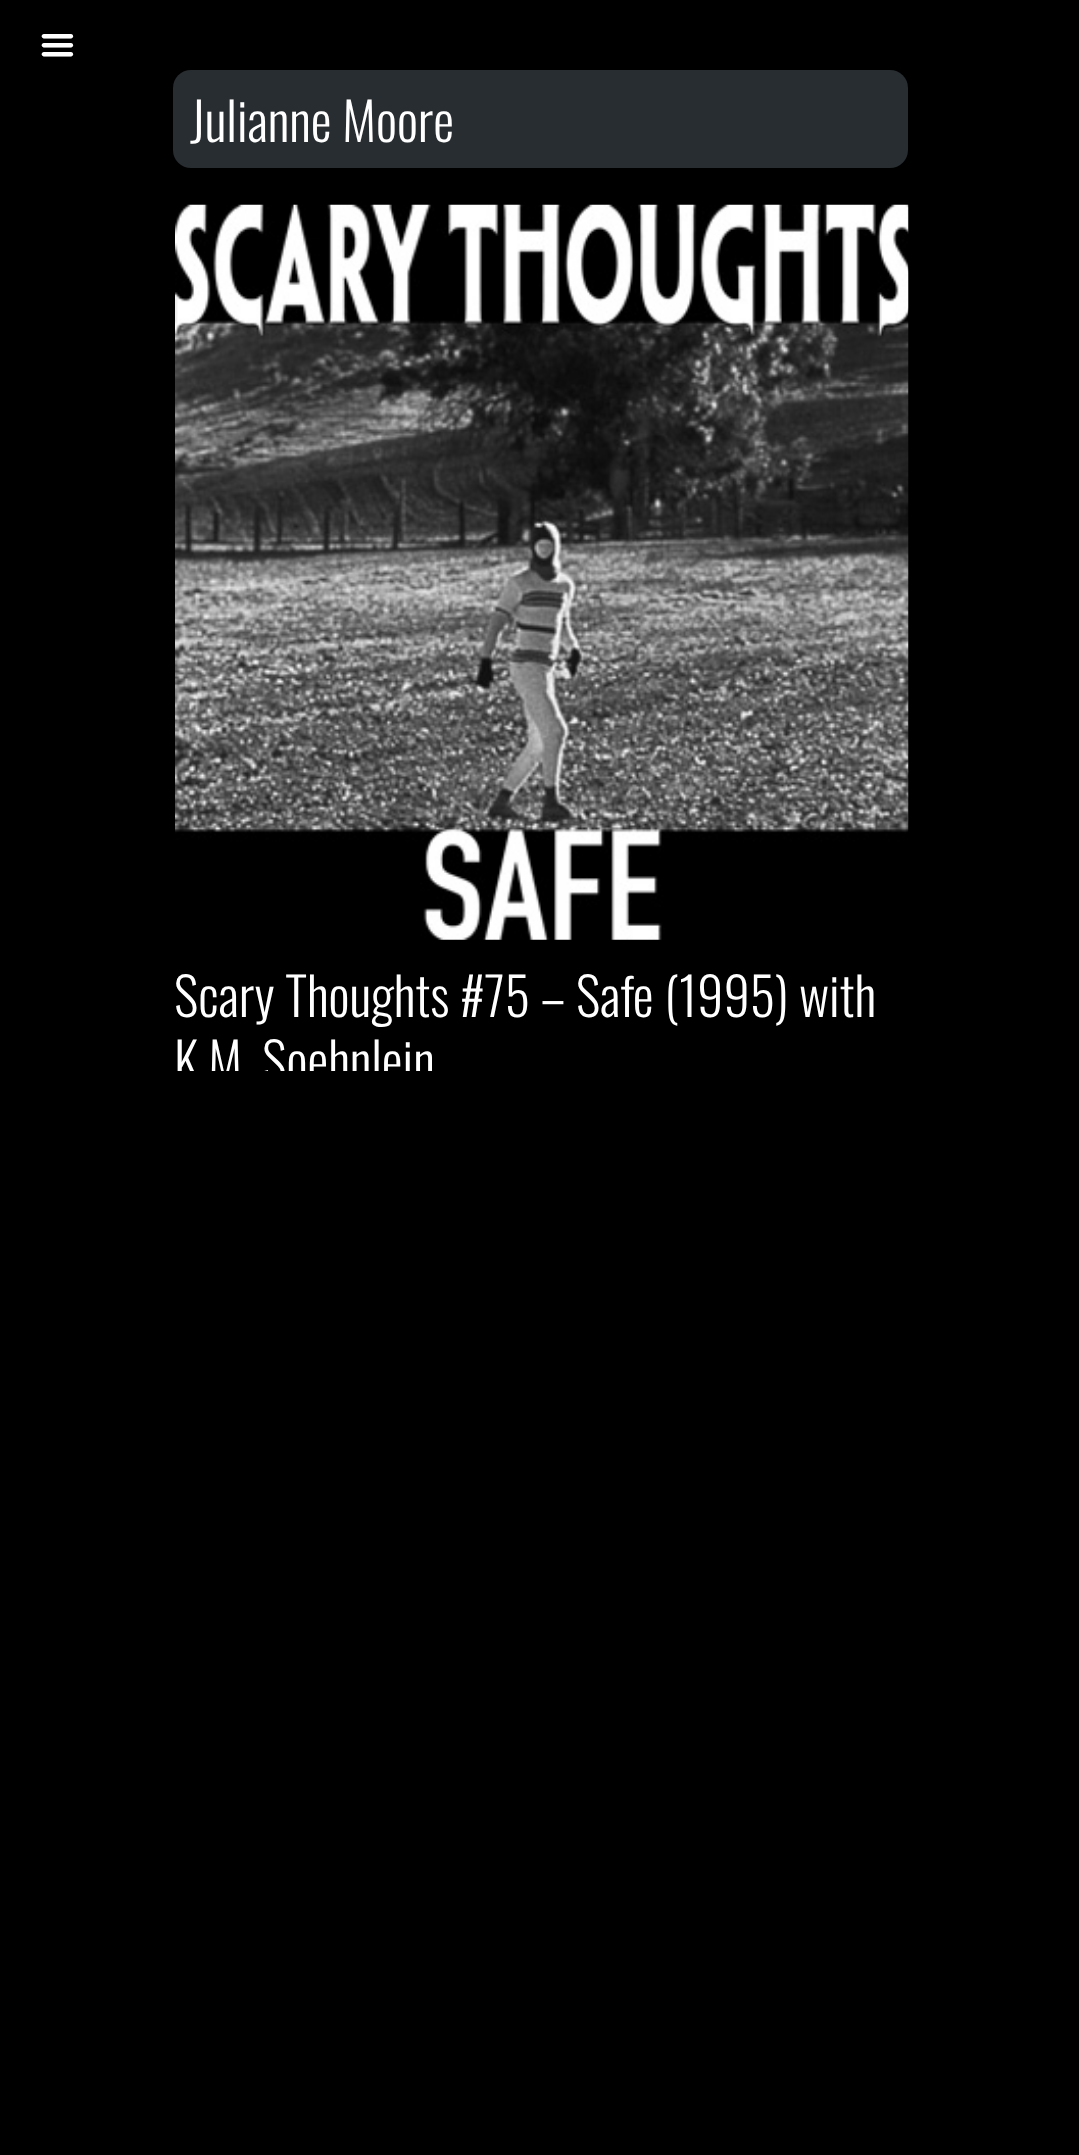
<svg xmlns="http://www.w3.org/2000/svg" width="1079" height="2155">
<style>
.a{font:500 45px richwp;fill:#fff}
.b{font:300 52.5px Oswald;fill:#fff}
</style>
<defs>
<clipPath id="clip1"><path d="M175 943h733v128H175z"/></clipPath>
</defs>
<rect width="100%" height="100%" fill="#000"/>
<rect fill="#282d31" x="173" y="70" width="735" height="98" rx="18"/>
<image href="1.png" x="175" y="204" width="734" height="736"/>
<text class="a" x="41" y="61">☰</text>
<text class="b" x="190" y="142">Julianne Moore</text>
<text class="b" x="174" y="1017">Scary Thoughts #75 – Safe (1995) with</text>
<g clip-path="url(#clip1)">
<text class="b" x="174" y="1082">K.M. Soehnlein</text>
</g>
</svg>
